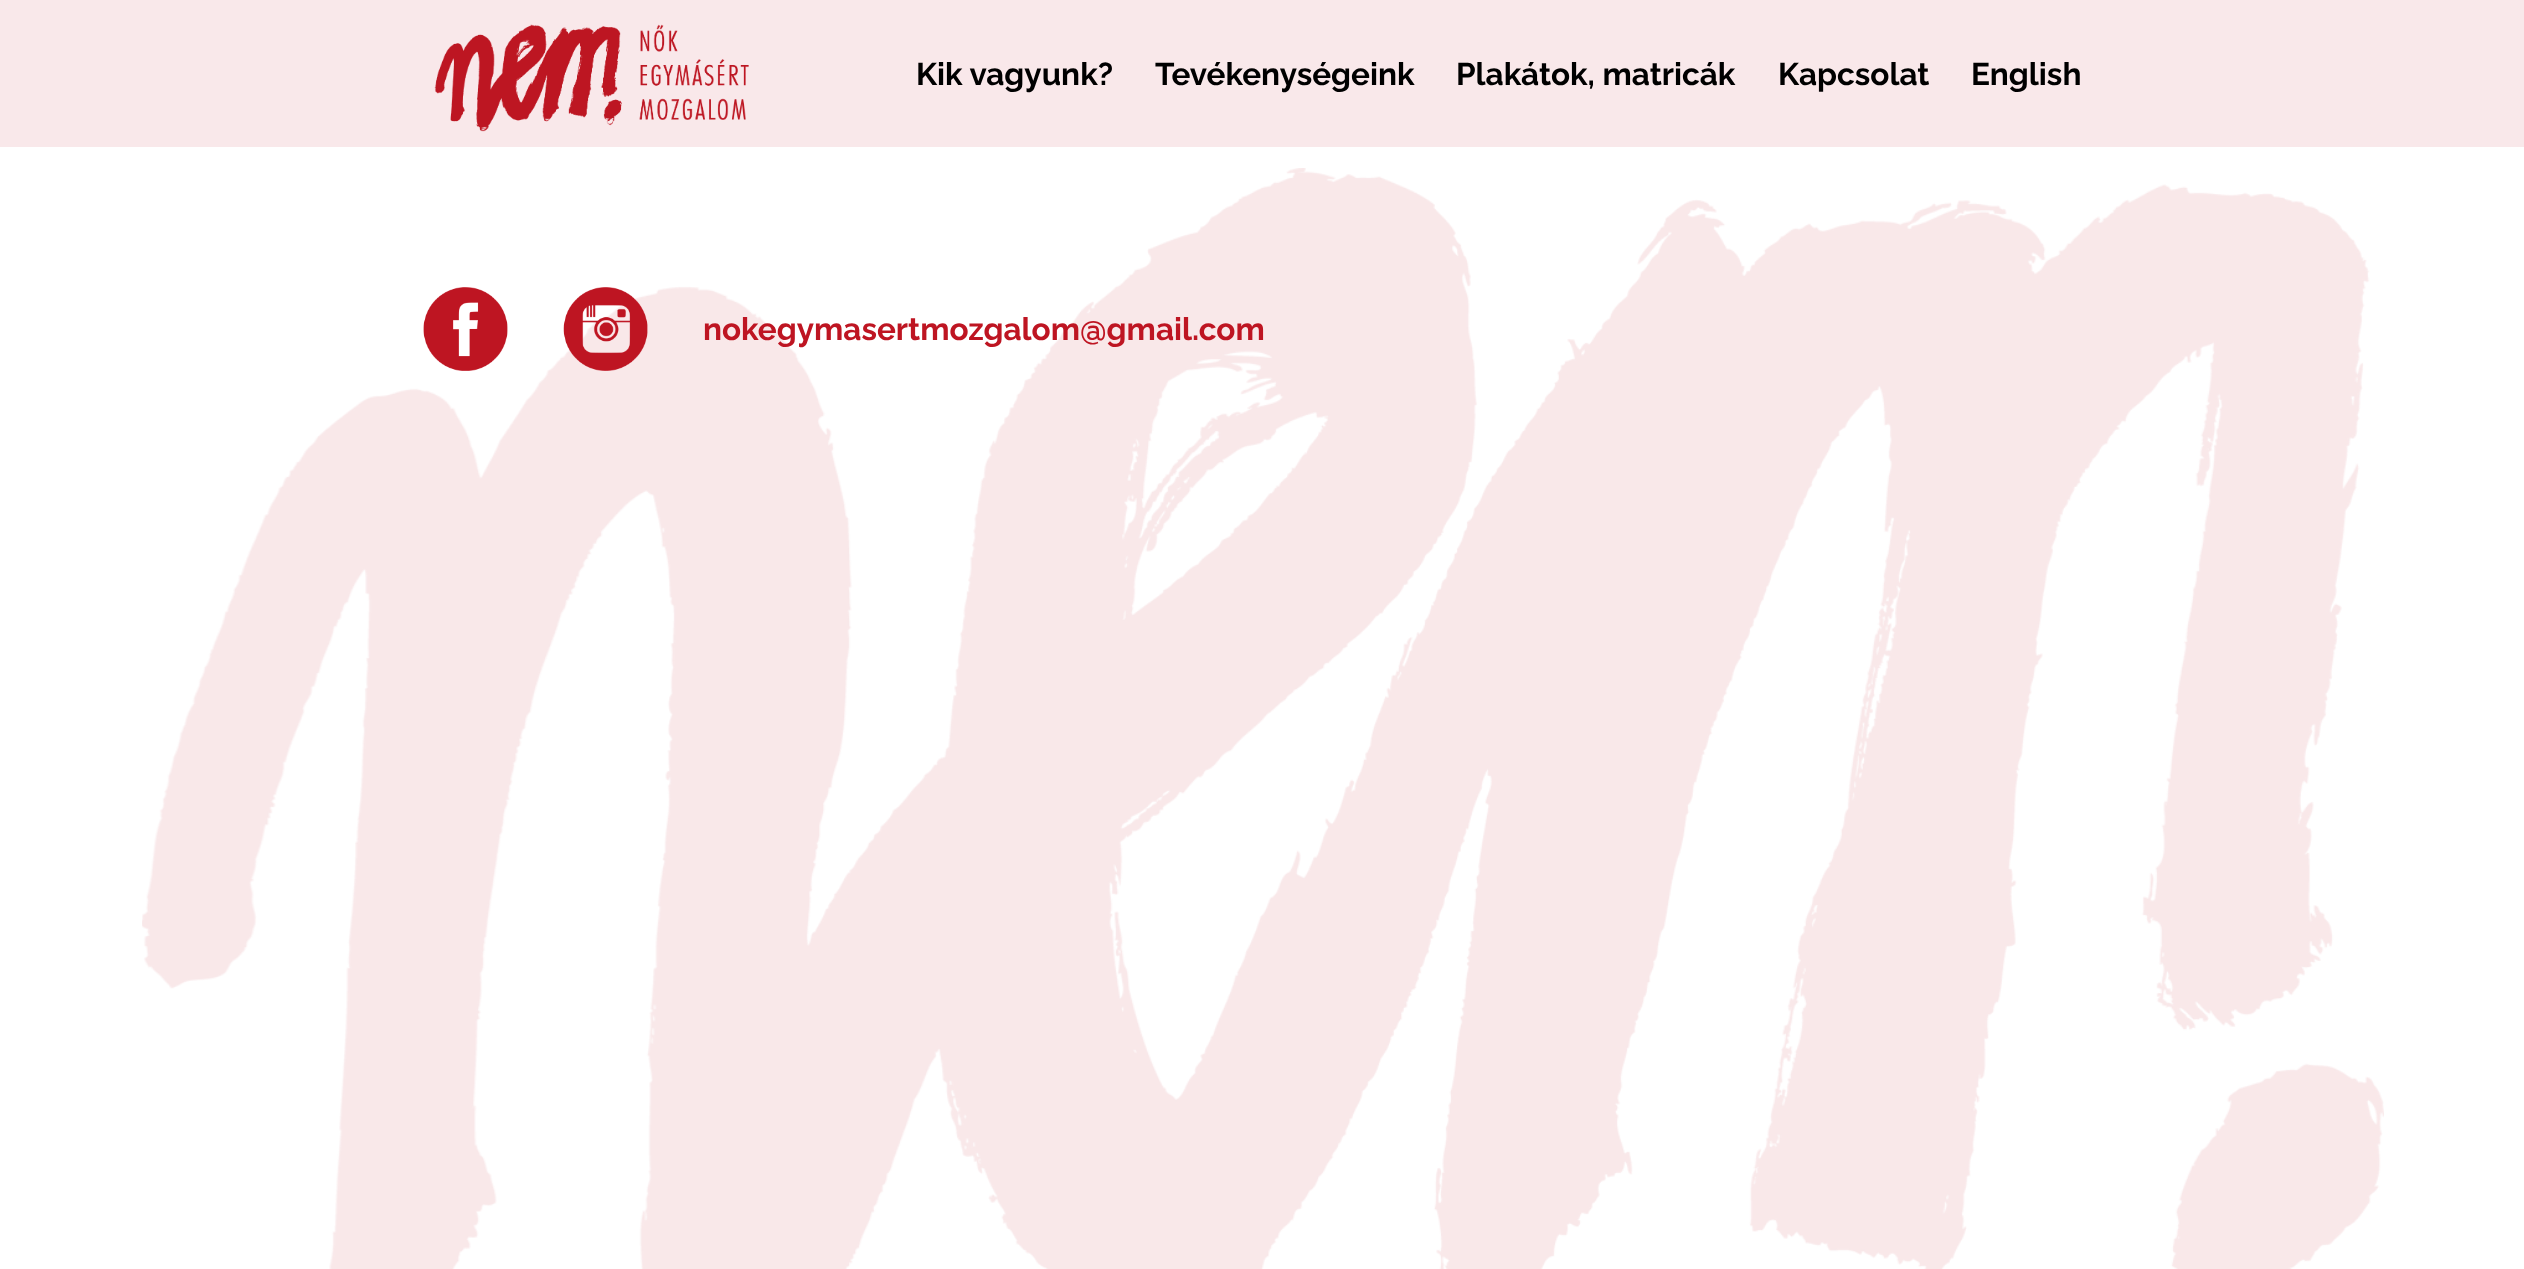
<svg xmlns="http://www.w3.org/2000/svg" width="2524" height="1269">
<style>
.a{font:100 31.5px Raleway;fill:#000}
.b{font:100 31.5px Raleway;fill:#be1522}
</style>
<rect width="100%" height="100%" fill="#fff"/>
<image href="1.png" x="142" y="168" width="2242" height="1101"/>
<path fill="#f9e8ea" d="M0 0h2524v147H0z"/>
<image href="2.png" x="434" y="24" width="315" height="108"/>
<image href="3.png" x="423" y="287" width="85" height="84"/>
<image href="4.png" x="563" y="287" width="85" height="84"/>
<text class="a" x="916" y="85">Kik vagyunk?</text>
<text class="a" x="1155" y="85">Tevékenységeink</text>
<text class="a" x="1456" y="85">Plakátok, matricák</text>
<text class="a" x="1778" y="85">Kapcsolat</text>
<text class="a" x="1971" y="85">English</text>
<text class="b" x="703" y="340">nokegymasertmozgalom@gmail.com</text>
</svg>
